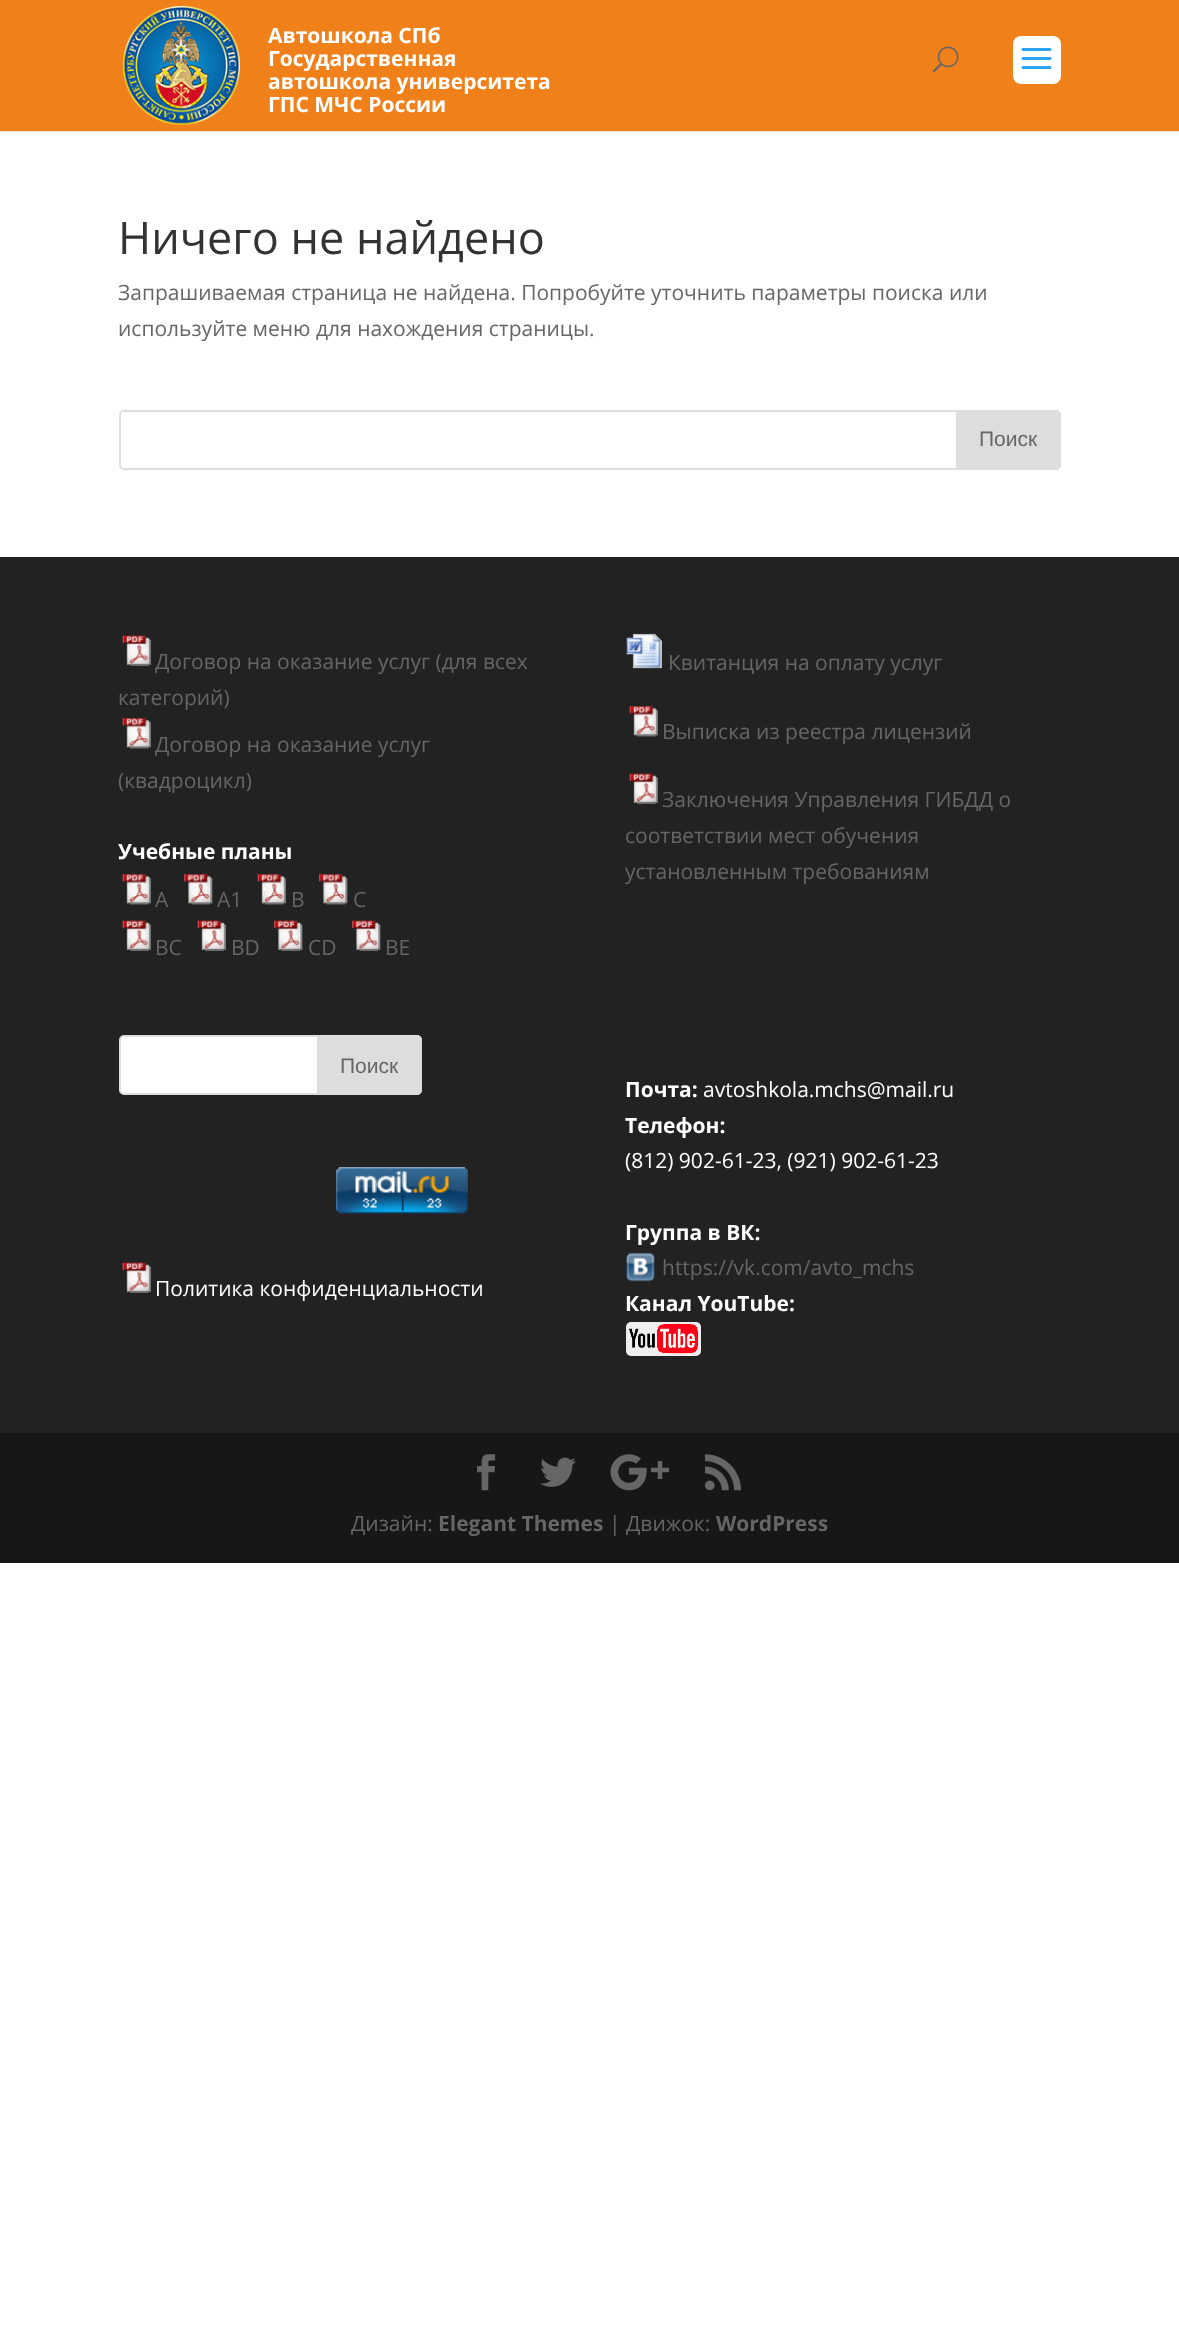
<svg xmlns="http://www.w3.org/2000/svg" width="1179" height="2344">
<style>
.a{font:bold 21px Open Sans;fill:#fff}
.b{font:45px Open Sans;fill:#333}
.c{font:21px Open Sans;fill:#666}
.d{font:21px Liberation Sans;fill:#666}
.e{font:21px Open Sans;fill:#fff}
.f{font:bold 21px Open Sans;fill:#666}
</style>
<rect width="100%" height="100%" fill="#fff"/>
<path fill="#e6e6e6" d="M0 131h1179v1H0z"/>
<path fill="#f0801a" d="M0 0h1179v131H0z"/>
<image href="1.png" x="123" y="6" width="117" height="119"/>
<image href="2.png" x="932" y="46" width="27" height="27"/>
<rect fill="#fff" x="1013" y="36" width="48" height="48" rx="8"/>
<image href="3.png" x="1021" y="48" width="31" height="21"/>
<rect fill="none" stroke="#ddd" stroke-width="2" x="120" y="411" width="940" height="58" rx="4"/>
<path fill="#ddd" stroke="#ddd" stroke-width="2" d="M957 411h99c2 0 4 2 4 4v50c0 2-2 4-4 4h-99z"/>
<path fill="#222" d="M0 557h1179v876H0z"/>
<image href="4.png" x="122" y="635" width="29" height="31"/>
<image href="5.png" x="122" y="718" width="29" height="31"/>
<image href="5.png" x="122" y="874" width="29" height="31"/>
<image href="6.png" x="184" y="874" width="29" height="31"/>
<image href="5.png" x="257" y="874" width="29" height="31"/>
<image href="6.png" x="319" y="874" width="29" height="31"/>
<image href="4.png" x="122" y="920" width="29" height="31"/>
<image href="7.png" x="197" y="920" width="29" height="31"/>
<image href="8.png" x="274" y="920" width="29" height="31"/>
<image href="9.png" x="352" y="920" width="29" height="31"/>
<image href="10.png" x="626" y="633" width="36" height="36"/>
<image href="5.png" x="629" y="706" width="29" height="31"/>
<image href="4.png" x="629" y="773" width="29" height="31"/>
<rect fill="#fff" stroke="#ddd" stroke-width="2" x="120" y="1036" width="301" height="58" rx="4"/>
<path fill="#ddd" stroke="#ddd" stroke-width="2" d="M318 1036h99c2 0 4 2 4 4v50c0 2-2 4-4 4h-99z"/>
<image href="11.png" x="336" y="1167" width="132" height="47"/>
<image href="4.png" x="122" y="1262" width="29" height="31"/>
<image href="12.png" x="626" y="1252" width="29" height="30"/>
<rect fill="#eee" x="626" y="1322" width="75" height="34" rx="5"/>
<image href="13.png" x="629" y="1323" width="69" height="31"/>
<path fill="#171717" d="M0 1433h1179v130H0z"/>
<image href="14.png" x="477" y="1454" width="19" height="37"/>
<image href="15.png" x="540" y="1457" width="36" height="30"/>
<image href="16.png" x="610" y="1454" width="59" height="37"/>
<image href="17.png" x="705" y="1454" width="36" height="37"/>
<text class="a" x="268" y="43">Автошкола СПб</text>
<text class="a" x="268" y="66">Государственная</text>
<text class="a" x="268" y="89">автошкола университета</text>
<text class="a" x="268" y="112">ГПС МЧС России</text>
<text class="b" x="118" y="254">Ничего не найдено</text>
<text class="c" x="118" y="300">Запрашиваемая страница не найдена. Попробуйте уточнить параметры поиска или</text>
<text class="c" x="118" y="336">используйте меню для нахождения страницы.</text>
<text class="d" x="979" y="446">Поиск</text>
<text class="c" x="155" y="669">Договор на оказание услуг (для всех</text>
<text class="c" x="118" y="705">категорий)</text>
<text class="c" x="155" y="752">Договор на оказание услуг</text>
<text class="c" x="118" y="788">(квадроцикл)</text>
<text class="a" x="118" y="859">Учебные планы</text>
<text class="c" x="155" y="907">A</text>
<text class="c" x="217" y="907">A1</text>
<text class="c" x="291" y="907">B</text>
<text class="c" x="353" y="907">C</text>
<text class="c" x="155" y="955">BC</text>
<text class="c" x="231" y="955">BD</text>
<text class="c" x="308" y="955">CD</text>
<text class="c" x="385" y="955">BE</text>
<text class="c" x="668" y="670">Квитанция на оплату услуг</text>
<text class="c" x="662" y="739">Выписка из реестра лицензий</text>
<text class="c" x="662" y="807">Заключения Управления ГИБДД о</text>
<text class="c" x="625" y="843">соответствии мест обучения</text>
<text class="c" x="625" y="879">установленным требованиям</text>
<text class="d" x="340" y="1073">Поиск</text>
<text class="e" x="155" y="1296">Политика конфиденциальности</text>
<text class="a" x="625" y="1097">Почта:</text>
<text class="e" x="703" y="1097">avtoshkola.mchs@mail.ru</text>
<text class="a" x="625" y="1133">Телефон:</text>
<text class="e" x="625" y="1168">(812) 902-61-23, (921) 902-61-23</text>
<text class="a" x="625" y="1240">Группа в ВК:</text>
<text class="c" x="662" y="1275">https://vk.com/avto_mchs</text>
<text class="a" x="625" y="1311">Канал YouTube:</text>
<text class="c" x="351" y="1531">Дизайн:</text>
<text class="f" x="438" y="1531">Elegant Themes</text>
<text class="c" x="609" y="1531">| Движок:</text>
<text class="f" x="716" y="1531">WordPress</text>
</svg>
